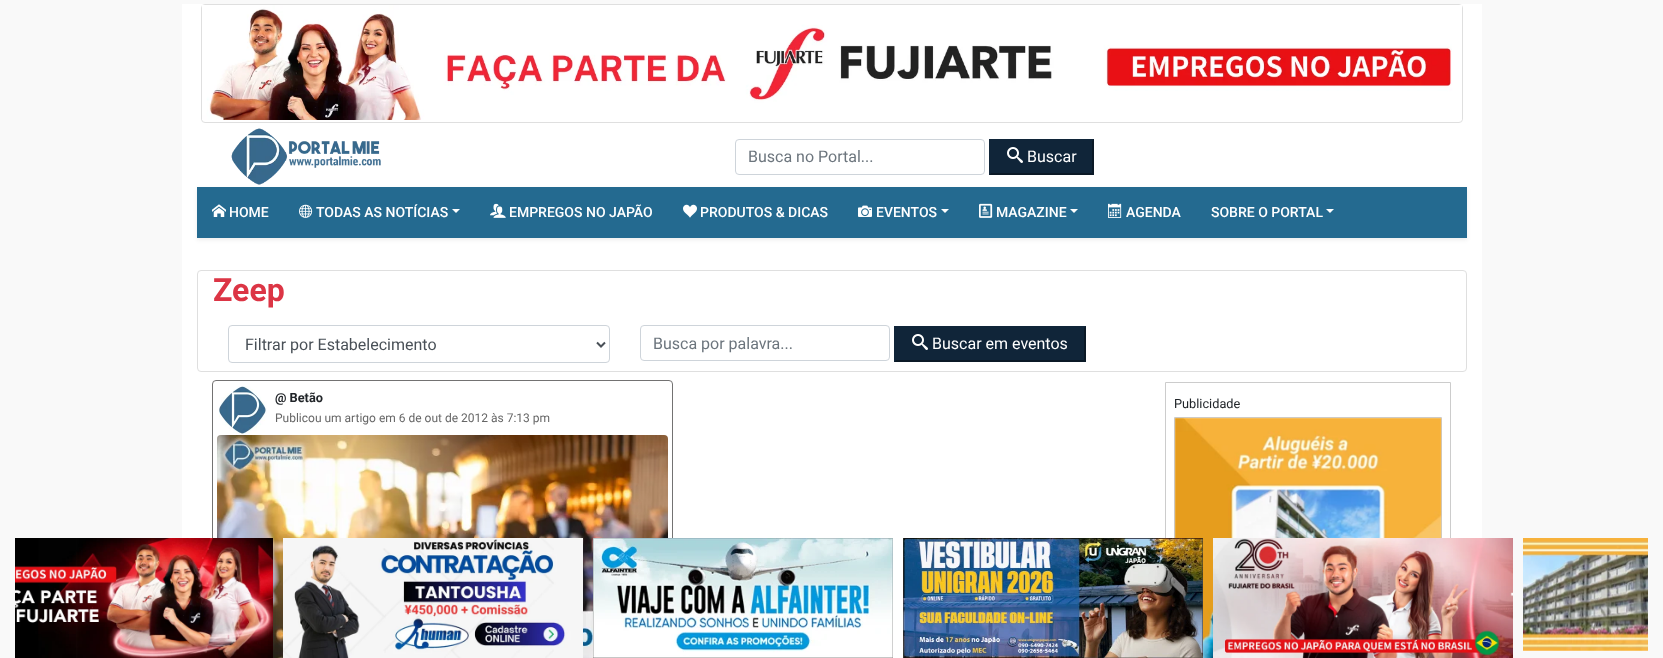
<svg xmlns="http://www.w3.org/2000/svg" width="1663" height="658">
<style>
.a{font:16px Roboto;fill:#6c757d}
.b{font:16px Roboto;fill:#fff}
.c{font:500 14px Roboto;fill:#fff}
.d{font:bold 32px Roboto;fill:#dc3545}
.e{font:16px Roboto;fill:#495057}
.f{font:bold 12.75px Roboto;fill:#212529}
.g{font:12px Roboto;fill:#666}
.h{font:12.75px Roboto;fill:#212529}
</style>
<rect width="100%" height="100%" fill="#f9f9f9"/>
<path fill="#fff" d="M182 4h1300v654H182z"/>
<rect fill="none" stroke="#dfdfdf" x="201.5" y="4.5" width="1261" height="118" rx="3.5"/>
<image href="1.png" x="202" y="5" width="1260" height="115"/>
<image href="2.png" x="231" y="128" width="150" height="57"/>
<rect fill="none" stroke="#ced4da" x="735.5" y="139.5" width="249" height="35" rx="3.5"/>
<path fill="#102539" d="M989 139h105v36H989z"/>
<path fill="#0b1926" d="M1094 139v36l-2-2v-32z"/>
<path fill="#0b1926" d="M1094 175h-105l2-2h101z"/>
<path fill="#102539" d="M989 175v-36l2 2v32z"/>
<image href="3.png" x="1007" y="147" width="16" height="16"/>
<path fill="#00000012" filter="blur(2px)" d="M197 189h1270v51H197z"/>
<path fill="#246a90" d="M197 187h1270v51H197z"/>
<image href="4.png" x="212" y="204" width="14" height="13"/>
<image href="5.png" x="299" y="204" width="14" height="14"/>
<path fill="#fff" d="M452 209h8l-4 4z"/>
<image href="6.png" x="490" y="203" width="16" height="15"/>
<image href="7.png" x="683" y="204" width="14" height="14"/>
<image href="8.png" x="858" y="205" width="14" height="12"/>
<path fill="#fff" d="M941 209h8l-4 4z"/>
<image href="9.png" x="979" y="203" width="14" height="15"/>
<path fill="#fff" d="M1070 209h8l-4 4z"/>
<image href="10.png" x="1108" y="203" width="14" height="15"/>
<path fill="#fff" d="M1326 209h8l-4 4z"/>
<rect fill="none" stroke="#dfdfdf" x="197.5" y="270.5" width="1269" height="101" rx="3.5"/>
<rect fill="none" stroke="#ced4da" x="228.5" y="325.5" width="381" height="37" rx="3.5"/>
<path fill="none" stroke="#495057" stroke-width="2" d="M597 342.5l4 4l4-4"/>
<rect fill="none" stroke="#ced4da" x="640.5" y="325.5" width="249" height="35" rx="3.5"/>
<path fill="#102539" d="M894 326h192v36H894z"/>
<path fill="#0b1926" d="M1086 326v36l-2-2v-32z"/>
<path fill="#0b1926" d="M1086 362h-192l2-2h188z"/>
<path fill="#102539" d="M894 362v-36l2 2v32z"/>
<image href="3.png" x="912" y="334" width="16" height="16"/>
<rect fill="none" stroke="#737272" x="212.5" y="380.5" width="460" height="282" rx="3.5"/>
<image href="11.png" x="219" y="386" width="48" height="48"/>
<image href="12.png" x="217" y="435" width="451" height="223"/>
<path fill="none" stroke="#ccc" d="M1165.5 382.5h285v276H1165.5z"/>
<path fill="none" stroke="#ccc" d="M1174.5 417.5h267v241H1174.5z"/>
<image href="13.png" x="1174" y="417" width="268" height="241"/>
<image href="14.png" x="15" y="538" width="258" height="120"/>
<image href="15.png" x="283" y="538" width="300" height="120"/>
<image href="16.png" x="593" y="538" width="300" height="120"/>
<image href="17.png" x="903" y="538" width="300" height="120"/>
<image href="18.png" x="1213" y="538" width="300" height="120"/>
<image href="19.png" x="1523" y="538" width="125" height="113"/>
<text class="a" x="748" y="162">Busca no Portal...</text>
<text class="b" x="1027" y="162">Buscar</text>
<text class="c" x="229" y="217">HOME</text>
<text class="c" x="316" y="217">TODAS AS NOTÍCIAS</text>
<text class="c" x="509" y="217">EMPREGOS NO JAPÃO</text>
<text class="c" x="700" y="217">PRODUTOS &amp; DICAS</text>
<text class="c" x="876" y="217">EVENTOS</text>
<text class="c" x="996" y="217">MAGAZINE</text>
<text class="c" x="1126" y="217">AGENDA</text>
<text class="c" x="1211" y="217">SOBRE O PORTAL</text>
<text class="d" x="213" y="301">Zeep</text>
<text class="e" x="245" y="350">Filtrar por Estabelecimento</text>
<text class="a" x="653" y="349">Busca por palavra...</text>
<text class="b" x="932" y="349">Buscar em eventos</text>
<text class="f" x="275" y="402">@ Betão</text>
<text class="g" x="275" y="422">Publicou um artigo em 6 de out de 2012 às 7:13 pm</text>
<text class="h" x="1174" y="408">Publicidade</text>
</svg>
